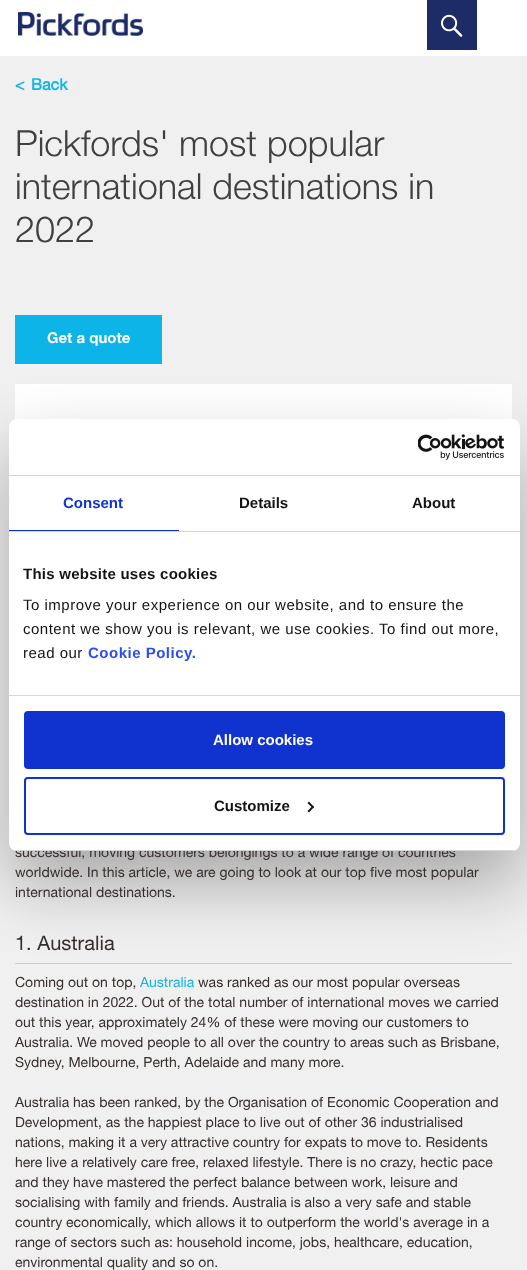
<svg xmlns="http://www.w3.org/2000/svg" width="527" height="1270">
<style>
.a{font:bold 16px 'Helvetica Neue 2';fill:#0eb6e7}
.b{font:300 36px Helvetica Neue;fill:#404040}
.c{font:bold 15px Helvetica Neue;fill:#fff}
.d{font:14px Helvetica Neue;fill:#372f2c}
.e{font:20px Helvetica Neue;fill:#372f2c}
.f{font:14px Helvetica Neue;fill:#0eb6e7}
.g{font:bold 15px Liberation Sans;fill:#1032cf}
.h{font:bold 15px Liberation Sans;fill:#141414}
.i{font:bold 15px Liberation Sans;letter-spacing:0.25px;fill:#141414}
.j{font:15px Liberation Sans;letter-spacing:0.5px;fill:#141414}
.k{font:bold 15px Liberation Sans;letter-spacing:0.5px;fill:#2a4eef}
.l{font:bold 15px Liberation Sans;fill:#fff}
</style>
<defs>
<clipPath id="clip1"><rect x="9" y="419" width="511" height="432" rx="8"/></clipPath>
</defs>
<rect width="100%" height="100%" fill="#f0f0f0"/>
<path fill="#fff" d="M0 0h527v56H0z"/>
<image href="1.png" x="18" y="12" width="125" height="24"/>
<path fill="#1d2b67" d="M427 0h50v50H427z"/>
<image href="2.png" x="441" y="14" width="22" height="23"/>
<path fill="#0db4e7" d="M15 315h147v49H15z"/>
<path fill="#fff" d="M15 384h497v36H15z"/>
<path fill="#ccc" d="M15 963h497v1H15z"/>
<rect fill="#0000004d" filter="blur(34px)" x="9" y="451" width="511" height="432" rx="8"/>
<text class="a" x="15" y="90">&lt;</text>
<text class="a" x="31" y="90">Back</text>
<text class="b" x="15" y="156">Pickfords' most popular</text>
<text class="b" x="15" y="199">international destinations in</text>
<text class="b" x="15" y="242">2022</text>
<text class="c" x="47" y="343">Get a quote</text>
<text class="d" x="15" y="857">successful, moving customers belongings to a wide range of countries</text>
<text class="d" x="15" y="877">worldwide. In this article, we are going to look at our top five most popular</text>
<text class="d" x="15" y="897">international destinations.</text>
<text class="e" x="15" y="950">1. Australia</text>
<text class="d" x="15" y="987">Coming out on top,</text>
<text class="f" x="140" y="987">Australia</text>
<text class="d" x="198" y="987">was ranked as our most popular overseas</text>
<text class="d" x="15" y="1007">destination in 2022. Out of the total number of international moves we carried</text>
<text class="d" x="15" y="1027">out this year, approximately 24% of these were moving our customers to</text>
<text class="d" x="15" y="1047">Australia. We moved people to all over the country to areas such as Brisbane,</text>
<text class="d" x="15" y="1067">Sydney, Melbourne, Perth, Adelaide and many more.</text>
<text class="d" x="15" y="1107">Australia has been ranked, by the Organisation of Economic Cooperation and</text>
<text class="d" x="15" y="1127">Development, as the happiest place to live out of other 36 industrialised</text>
<text class="d" x="15" y="1147">nations, making it a very attractive country for expats to move to. Residents</text>
<text class="d" x="15" y="1167">here live a relatively care free, relaxed lifestyle. There is no crazy, hectic pace</text>
<text class="d" x="15" y="1187">and they have mastered the perfect balance between work, leisure and</text>
<text class="d" x="15" y="1207">socialising with family and friends. Australia is also a very safe and stable</text>
<text class="d" x="15" y="1227">country economically, which allows it to outperform the world's average in a</text>
<text class="d" x="15" y="1247">range of sectors such as: household income, jobs, healthcare, education,</text>
<text class="d" x="15" y="1267">environmental quality and so on.</text>
<rect fill="#fff" x="9" y="419" width="511" height="432" rx="8"/>
<path fill="#d6d6d6" d="M9 475h511v1H9z"/>
<image href="3.png" x="418" y="434" width="86" height="26"/>
<path fill="#d6d6d6" d="M9 531h511v1H9z"/>
<path fill="#1032cf" d="M9 530h170v1H9z"/>
<text class="g" x="63" y="508">Consent</text>
<text class="h" x="239" y="508">Details</text>
<text class="h" x="412" y="508">About</text>
<path fill="#d6d6d6" d="M9 695h511v1H9z"/>
<text class="i" x="23" y="579">This website uses cookies</text>
<text class="j" x="23" y="610">To improve your experience on our website, and to ensure the</text>
<text class="j" x="23" y="634">content we show you is relevant, we use cookies. To find out more,</text>
<text class="j" x="23" y="658">read our</text>
<text class="k" x="88" y="658">Cookie Policy.</text>
<g clip-path="url(#clip1)">
<path fill="#d6d6d6" d="M9 850h511v1H9z"/>
</g>
<rect fill="#1032cf" stroke="#1032cf" stroke-width="2" x="25" y="712" width="479" height="56" rx="3"/>
<text class="l" x="213" y="745">Allow cookies</text>
<rect fill="none" stroke="#1032cf" stroke-width="2" x="25" y="778" width="479" height="56" rx="3"/>
<text class="h" x="214" y="811">Customize</text>
<path fill="#141414" d="M309 801.5l5 5.5l-1 1.5l-5.5-5.5z"/>
<path fill="#141414" d="M313 805.5l1 1.5l-5 5.5l-1.5-1.5z"/>
</svg>
